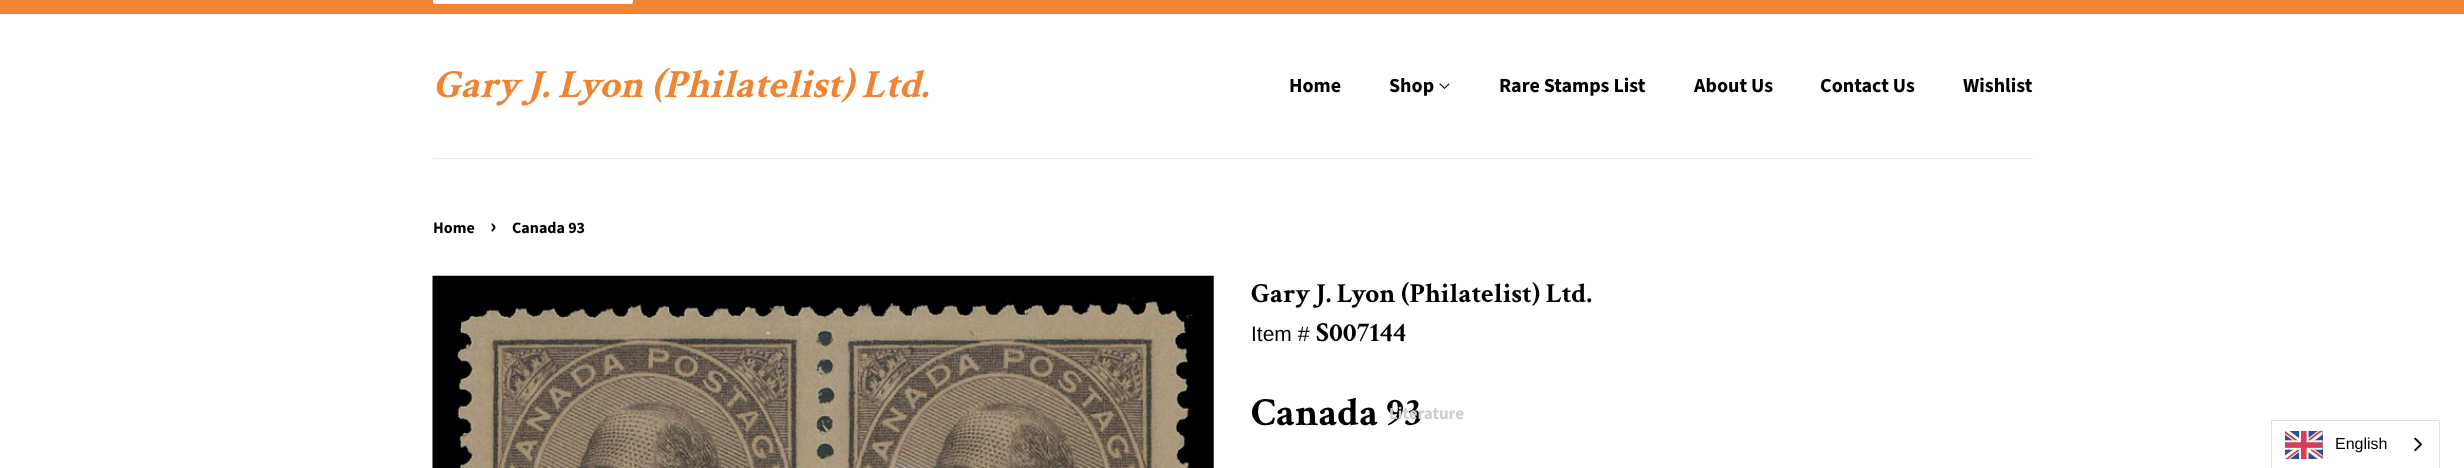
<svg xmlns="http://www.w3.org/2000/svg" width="2464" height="468">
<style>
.a{font:italic bold 40px Crimson Text;fill:#ef8432}
.b{font:bold 20px Source Sans Pro;fill:#000}
.c{font:bold 16px Source Sans Pro;fill:#000}
.d{font:bold 22px Source Sans Pro;fill:#000}
.e{font:bold 27.5px Crimson Text;fill:#000}
.f{font:21px Liberation Sans;fill:#000}
.g{font:bold 40px Crimson Text;fill:#000}
.h{font:bold 17px Source Sans Pro;fill:#cecece}
.i{font:16px Liberation Sans;fill:#000}
</style>
<rect width="100%" height="100%" fill="#fff"/>
<path fill="#ef8432" d="M0 0h2464v14H0z"/>
<rect fill="#fff" x="433" y="-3" width="200" height="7" rx="2.5"/>
<path fill="#ebebeb" d="M433 158h1600v1H433z"/>
<image href="1.png" x="1439" y="83" width="11" height="6"/>
<image href="2.png" x="432" y="275" width="782" height="193"/>
<path fill="none" stroke="#e0e0e0" d="M2271.5 420.5h168v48H2271.5z"/>
<image href="3.png" x="2285" y="430" width="38" height="30"/>
<image href="4.png" x="2414" y="437" width="9" height="15"/>
<text class="a" x="433" y="97">Gary J. Lyon (Philatelist) Ltd.</text>
<text class="b" x="1289" y="92">Home</text>
<text class="b" x="1389" y="92">Shop</text>
<text class="b" x="1499" y="92">Rare Stamps List</text>
<text class="b" x="1694" y="92">About Us</text>
<text class="b" x="1820" y="92">Contact Us</text>
<text class="b" x="1963" y="92">Wishlist</text>
<text class="c" x="433" y="233">Home</text>
<text class="d" x="490" y="233">›</text>
<text class="c" x="512" y="233">Canada 93</text>
<text class="e" x="1251" y="302">Gary J. Lyon (Philatelist) Ltd.</text>
<text class="f" x="1251" y="341">Item #</text>
<text class="e" x="1316" y="341">S007144</text>
<text class="g" x="1251" y="425">Canada 93</text>
<text class="h" x="1389" y="419">Literature</text>
<text class="i" x="2335" y="449">English</text>
</svg>
